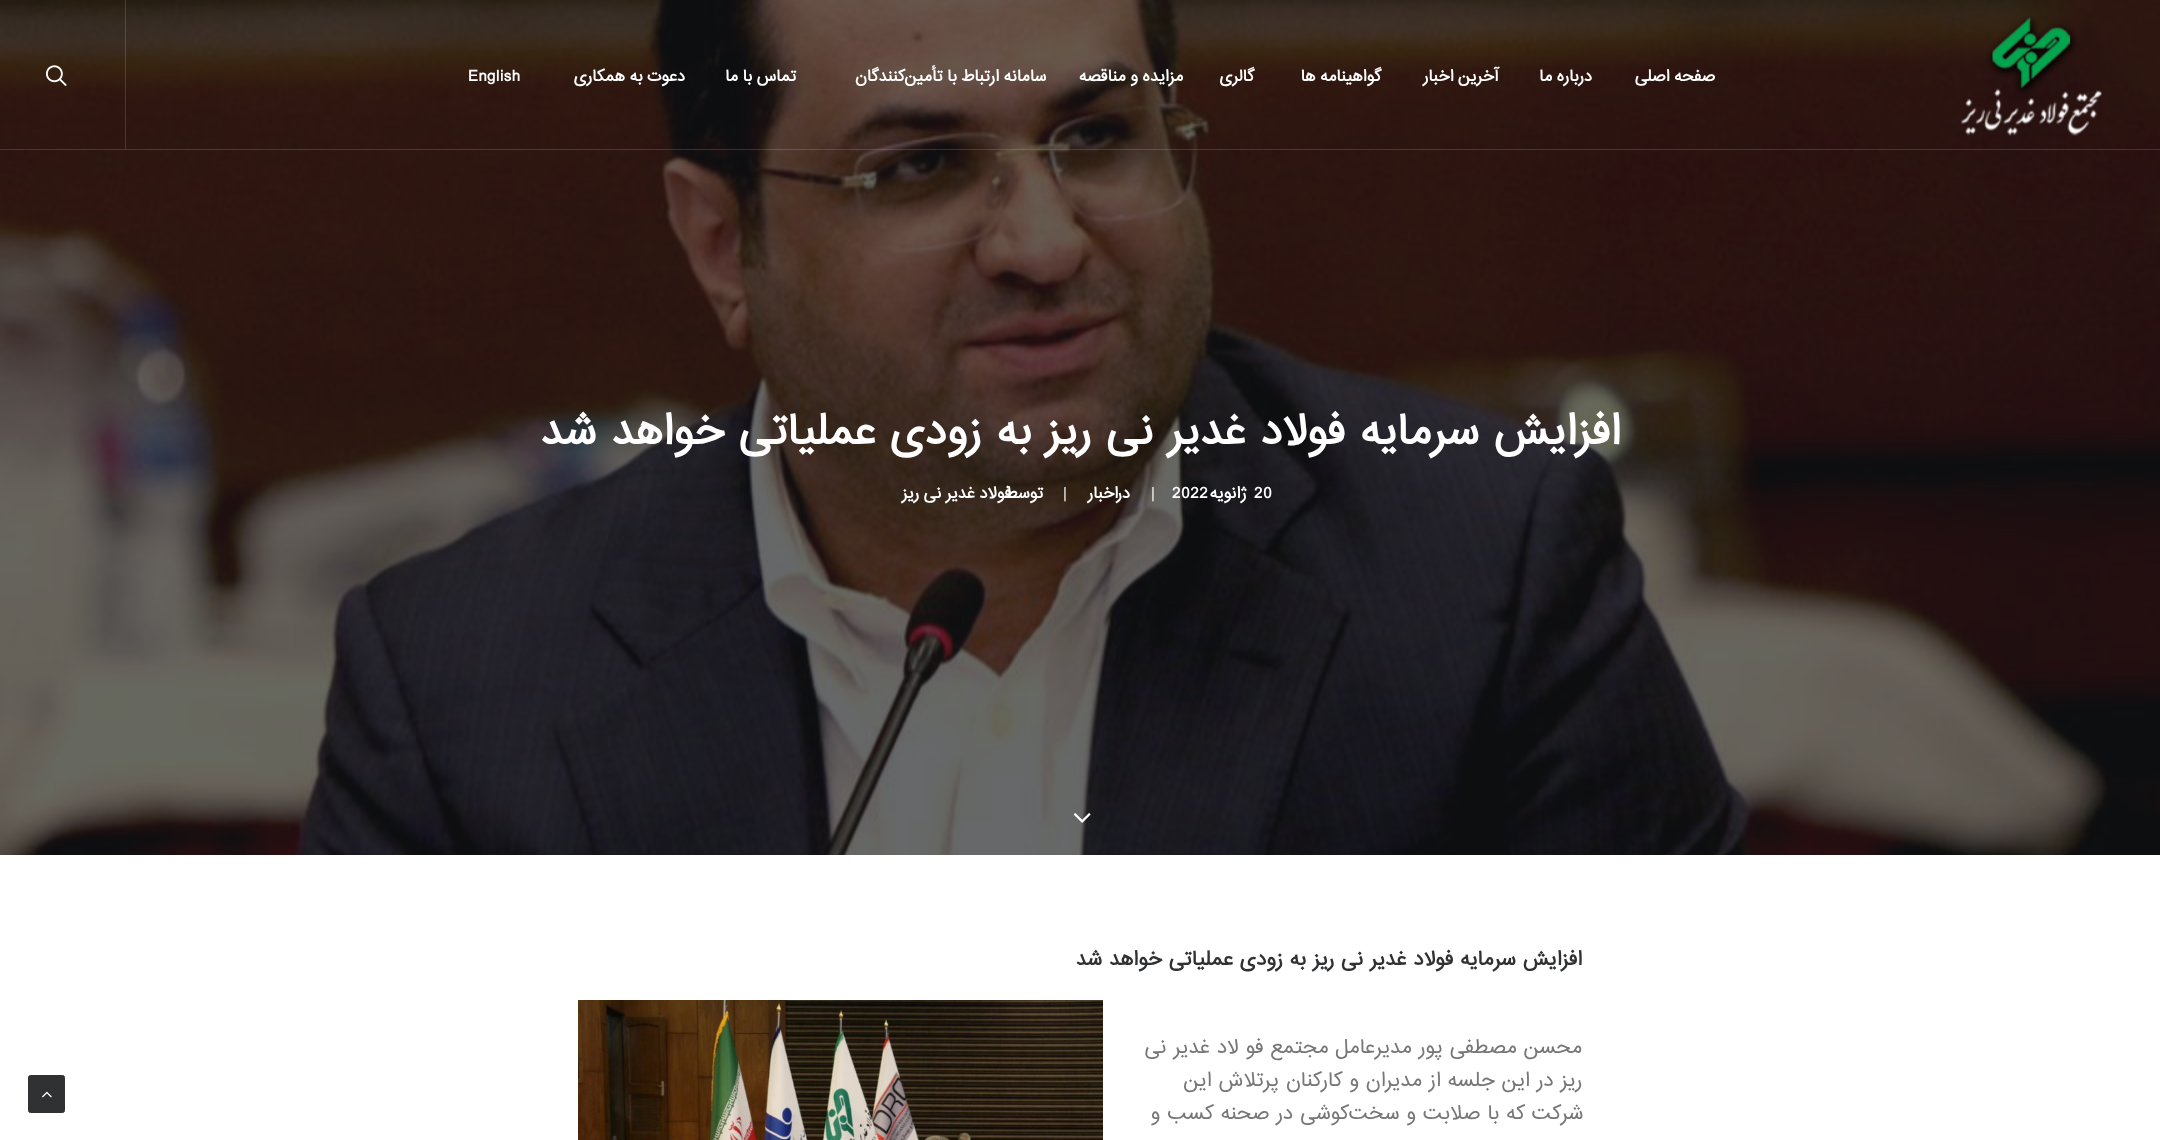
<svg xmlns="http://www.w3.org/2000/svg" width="2160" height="1140">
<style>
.a{font:bold 15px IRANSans;letter-spacing:0.75px;direction:rtl;fill:#fff}
.b{font:bold 15px IRANSans;letter-spacing:0.75px;fill:#fff}
.c{font:bold 40px IRANSans;direction:rtl;fill:#fff}
.d{font:15px IRANSans;letter-spacing:0.75px;fill:#fff}
.e{font:bold 18.75px IRANSans;direction:rtl;fill:#303133}
.f{font:18.75px IRANSans;direction:rtl;fill:#777}
</style>
<rect width="100%" height="100%" fill="#fff"/>
<image href="3.png" x="0" y="0" width="2160" height="855"/>
<path fill="#ffffff26" d="M0 149h2160v1H0z"/>
<image href="1.png" x="1961" y="16" width="141" height="120"/>
<path fill="#ffffff26" d="M125 0h1v149H125z"/>
<image href="2.png" x="45" y="65" width="22" height="21"/>
<image href="4.png" x="1073" y="813" width="18" height="10"/>
<image href="5.png" x="578" y="1000" width="525" height="140"/>
<rect fill="#303133" stroke="#303133" x="28.5" y="1075.5" width="36" height="37" rx="2"/>
<image href="6.png" x="42" y="1091" width="10" height="7"/>
<text class="a" x="1715" y="81" word-spacing="-1">صفحه اصلی</text>
<text class="a" x="1592" y="81" word-spacing="-1">درباره ما</text>
<text class="a" x="1498" y="81" word-spacing="-1">آخرین اخبار</text>
<text class="a" x="1381" y="81" word-spacing="-1">گواهینامه ها</text>
<text class="a" x="1254" y="81">گالری</text>
<text class="a" x="1183" y="81" word-spacing="-1">مزایده و مناقصه</text>
<text class="a" x="1046" y="81" word-spacing="-1">سامانه ارتباط با تأمین‌کنندگان</text>
<text class="a" x="796" y="81" word-spacing="-1">تماس با ما</text>
<text class="a" x="685" y="81" word-spacing="-1">دعوت به همکاری</text>
<text class="b" x="468" y="81">English</text>
<text class="c" x="1620" y="444">افزایش سرمایه فولاد غدیر نی ریز به زودی عملیاتی خواهد شد</text>
<text class="b" x="1254" y="498">20</text>
<text class="b" x="1172" y="498">2022</text>
<text class="a" x="1247" y="498">ژانویه</text>
<text class="d" x="1151" y="498">|</text>
<text class="a" x="1130" y="498">در</text>
<text class="a" x="1118" y="498">اخبار</text>
<text class="d" x="1063" y="498">|</text>
<text class="a" x="1043" y="498">توسط</text>
<text class="a" x="1011" y="498" word-spacing="-1">فولاد غدیر نی ریز</text>
<text class="e" x="1582" y="965">افزایش سرمایه فولاد غدیر نی ریز به زودی عملیاتی خواهد شد</text>
<text class="f" x="1582" y="1053">محسن مصطفی پور مدیرعامل مجتمع فو لاد غدیر نی</text>
<text class="f" x="1582" y="1086">ریز در این جلسه از مدیران و کارکنان پرتلاش این</text>
<text class="f" x="1583" y="1119">شرکت که با صلابت و سخت‌کوشی در صحنه کسب و</text>
</svg>
